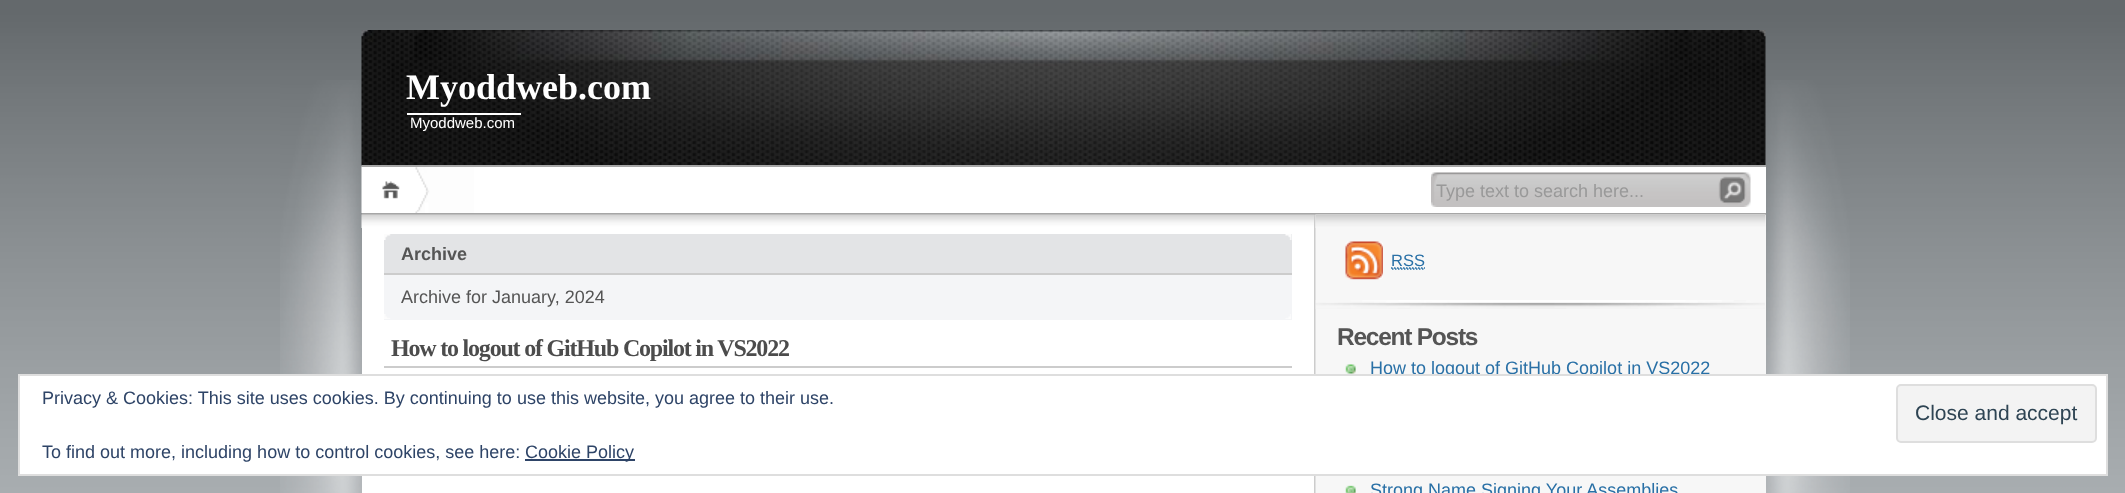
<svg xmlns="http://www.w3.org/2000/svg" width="2125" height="493">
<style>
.a{font:bold 36px Liberation Serif;fill:#fff}
.b{font:15px Liberation Sans;fill:#fff}
.c{font:18px Liberation Sans;fill:#999}
.d{font:bold 18px Liberation Sans;fill:#555}
.e{font:18px Liberation Sans;fill:#555}
.f{font:bold 24px Liberation Serif;letter-spacing:-1.2px;fill:#4c4c4c}
.g{font:16.5px Liberation Sans;fill:#2970a6}
.h{font:bold 24.5px Liberation Sans;letter-spacing:-1.25px;fill:#555}
.i{font:18px Liberation Sans;fill:#2970a6}
.j{font:18px Liberation Sans;fill:#2e4467}
.k{font:21px Liberation Sans;fill:#2e4453}
</style>
<rect width="100%" height="100%" fill="#fff"/>
<image href="1.png" x="0" y="0" width="2125" height="493"/>
<image href="2.png" x="280" y="80" width="1570" height="413"/>
<image href="3.png" x="361" y="30" width="1405" height="135"/>
<image href="4.png" x="361" y="166" width="66" height="47"/>
<path fill="#a6a6a6" d="M362 165h1404v2H362z"/>
<path fill="#fff" d="M407 113h114v2H407z"/>
<path fill="#fff" d="M474 167h1292v46H474z"/>
<path fill="#a6a6a6" d="M362 213h1404v2H362z"/>
<image href="5.png" x="415" y="167" width="59" height="46"/>
<image href="6.png" x="1431" y="172" width="320" height="35"/>
<path fill="#fff" d="M362 228h952v265H362z"/>
<image href="7.png" x="1314" y="214" width="452" height="279"/>
<image href="8.png" x="361" y="214" width="953" height="14"/>
<path fill="#e3e4e6" d="M384 234h908v39H384z"/>
<image href="9.png" x="384" y="234" width="908" height="6"/>
<path fill="#ccc" d="M384 273h908v2H384z"/>
<path fill="#f4f5f7" d="M384 275h908v45H384z"/>
<image href="10.png" x="384" y="314" width="907" height="5"/>
<path fill="#ccc" d="M384 366h908v2H384z"/>
<path fill="#f7f7f7" d="M1765 215h1v278H1765z"/>
<image href="11.png" x="1315" y="214" width="451" height="14"/>
<image href="12.png" x="1315" y="300" width="450" height="9"/>
<image href="13.png" x="1345" y="241" width="38" height="39"/>
<path fill="none" stroke="#2970a6" stroke-width="1.5" stroke-dasharray="1.5 1.5" d="M1392 269h33m-34-1h34"/>
<image href="14.png" x="1345" y="364" width="11" height="10"/>
<image href="15.png" x="1345" y="485" width="11" height="8"/>
<text class="a" x="406" y="99">Myoddweb.com</text>
<text class="b" x="410" y="128">Myoddweb.com</text>
<text class="c" x="1436" y="197">Type text to search here...</text>
<text class="d" x="401" y="260">Archive</text>
<text class="e" x="401" y="303">Archive for January, 2024</text>
<text class="f" x="391" y="356">How to logout of GitHub Copilot in VS2022</text>
<text class="g" x="1391" y="266">RSS</text>
<text class="h" x="1337" y="345">Recent Posts</text>
<text class="i" x="1370" y="374">How to logout of GitHub Copilot in VS2022</text>
<text class="i" x="1370" y="496">Strong Name Signing Your Assemblies</text>
<path fill="#fff" stroke="#dedede" stroke-width="2" d="M19 375h2088v100H19z"/>
<text class="j" x="42" y="404">Privacy &amp; Cookies: This site uses cookies. By continuing to use this website, you agree to their use.</text>
<rect fill="#f3f3f3" stroke="#dedede" stroke-width="2" x="1897" y="385" width="199" height="57" rx="4"/>
<text class="k" x="1915" y="420">Close and accept</text>
<text class="j" x="42" y="458">To find out more, including how to control cookies, see here:</text>
<path fill="#2e4467" d="M525 459h110v2H525z"/>
<text class="j" x="525" y="458">Cookie Policy</text>
</svg>
